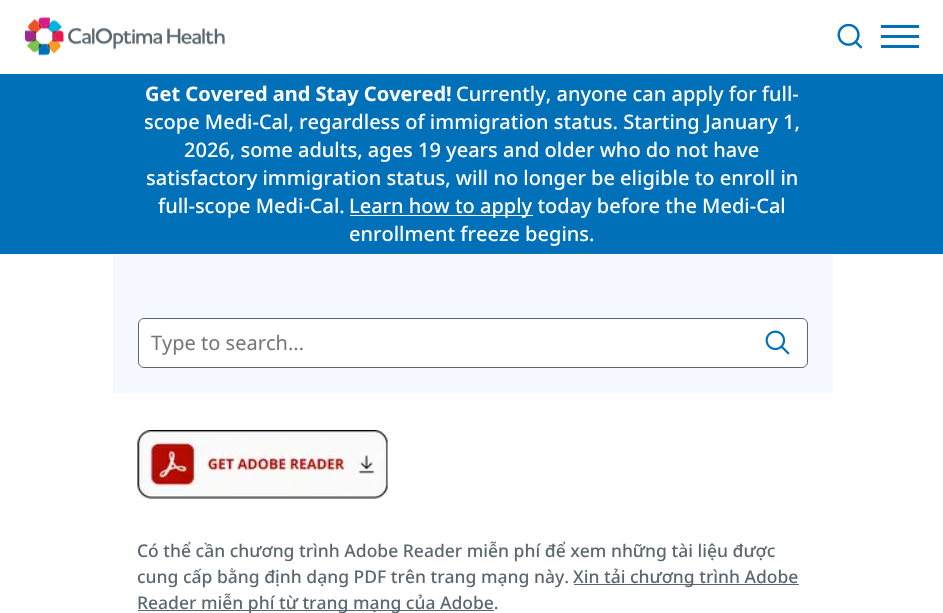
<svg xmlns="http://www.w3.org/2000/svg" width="943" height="613">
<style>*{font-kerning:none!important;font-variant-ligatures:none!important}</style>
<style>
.a{font:bold 20px Noto Sans;fill:#fff}
.b{font:500 20px Noto Sans;fill:#fff}
.c{font:20px Noto Sans;fill:#757575}
.d{font:500 17.5px Noto Sans;fill:#5b6770}
</style>
<rect width="100%" height="100%" fill="#fff"/>
<image href="1.png" x="25" y="17" width="200" height="39"/>
<image href="2.png" x="837" y="24" width="26" height="25"/>
<path fill="#0071b9" d="M881 25h38v3H881z"/>
<path fill="#0071b9" d="M881 35h38v3H881z"/>
<path fill="#0071b9" d="M881 45h38v3H881z"/>
<path fill="#0071b9" d="M0 74h943v180H0z"/>
<path fill="#fff" d="M350 215h183v1H350z"/>
<path fill="#f6f8ff" d="M113 255h720v138H113z"/>
<rect fill="#fff" stroke="#5b6770" x="138.5" y="318.5" width="669" height="49" rx="5.5"/>
<image href="3.png" x="765" y="330" width="25" height="25"/>
<image href="4.png" x="137" y="430" width="251" height="69"/>
<path fill="#5b6770" d="M574 584h225v1H574z"/>
<path fill="#5b6770" d="M138 610h356v1H138z"/>
<text class="a" x="145" y="101">Get Covered and Stay Covered!</text>
<text class="b" x="456" y="101">Currently, anyone can apply for full-</text>
<text class="b" x="144" y="129">scope Medi-Cal, regardless of immigration status. Starting January 1,</text>
<text class="b" x="184" y="157">2026, some adults, ages 19 years and older who do not have</text>
<text class="b" x="146" y="185">satisfactory immigration status, will no longer be eligible to enroll in</text>
<text class="b" x="158" y="213">full-scope Medi-Cal.</text>
<text class="b" x="349" y="213">Learn how to apply today before the Medi-Cal</text>
<text class="b" x="349" y="241">enrollment freeze begins.</text>
<text class="c" x="151" y="350">Type to search...</text>
<text class="d" x="137" y="557">Có thể cần chương trình Adobe Reader miễn phí để xem những tài liệu được</text>
<text class="d" x="137" y="583">cung cấp bằng định dạng PDF trên trang mạng này.</text>
<text class="d" x="573" y="583">Xin tải chương trình Adobe</text>
<text class="d" x="137" y="609">Reader miễn phí từ trang mạng của Adobe.</text>
</svg>
